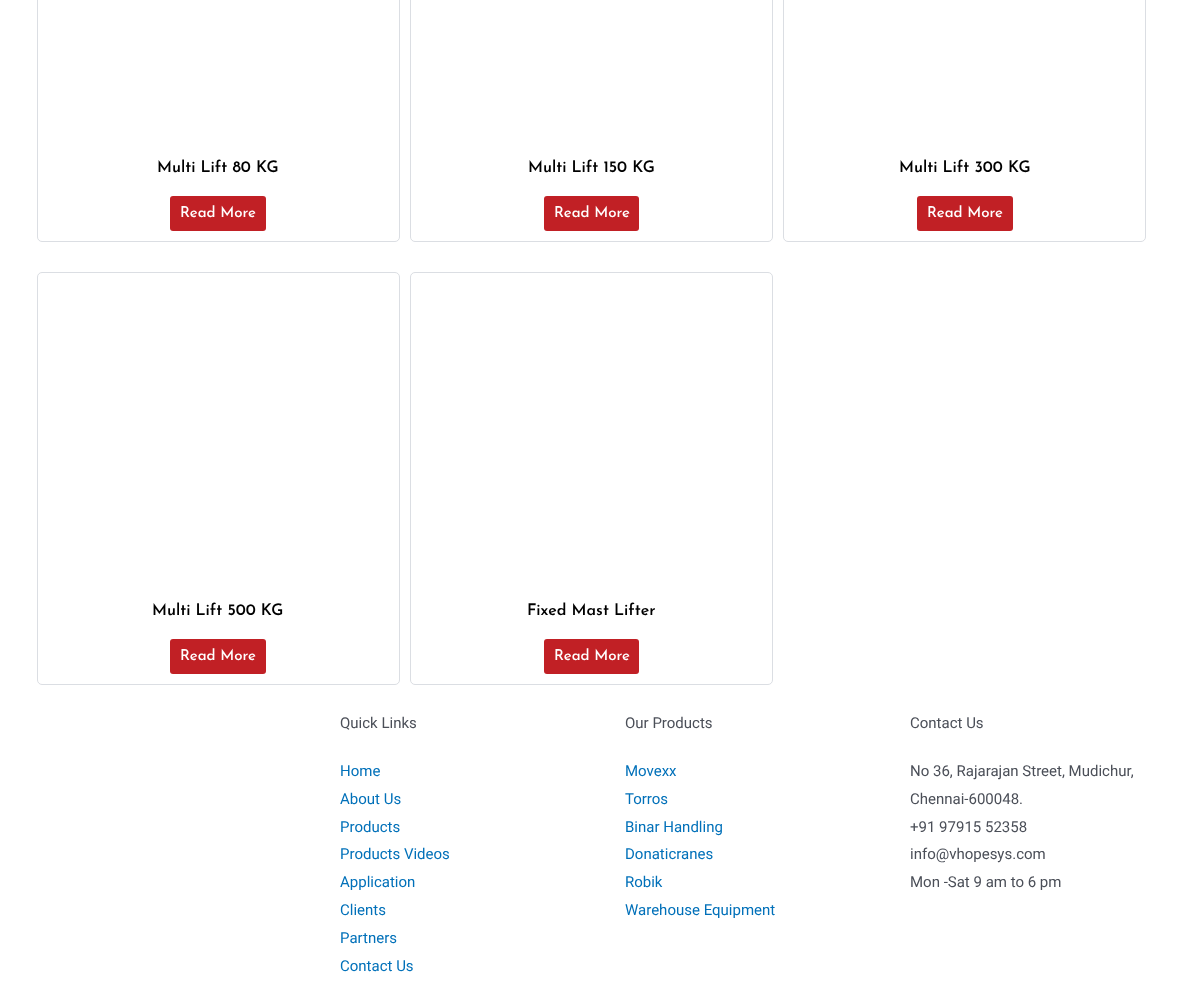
<svg xmlns="http://www.w3.org/2000/svg" width="1183" height="988">
<style>
.a{font:600 16px Josefin Sans;fill:#000}
.b{font:500 15px Josefin Sans;fill:#fff}
.c{font:15px Roboto;fill:#4b4f58}
.d{font:15px Roboto;fill:#0170b9}
</style>
<rect width="100%" height="100%" fill="#fff"/>
<rect fill="none" stroke="#dbdee3" x="37.5" y="-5.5" width="362" height="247" rx="4.5"/>
<rect fill="#c12025" x="170" y="196" width="96" height="35" rx="3"/>
<rect fill="none" stroke="#dbdee3" x="410.5" y="-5.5" width="362" height="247" rx="4.5"/>
<rect fill="#c12025" x="544" y="196" width="95" height="35" rx="3"/>
<rect fill="none" stroke="#dbdee3" x="783.5" y="-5.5" width="362" height="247" rx="4.5"/>
<rect fill="#c12025" x="917" y="196" width="96" height="35" rx="3"/>
<rect fill="none" stroke="#dbdee3" x="37.5" y="272.5" width="362" height="412" rx="4.5"/>
<rect fill="#c12025" x="170" y="639" width="96" height="35" rx="3"/>
<rect fill="none" stroke="#dbdee3" x="410.5" y="272.5" width="362" height="412" rx="4.5"/>
<rect fill="#c12025" x="544" y="639" width="95" height="35" rx="3"/>
<text class="a" x="157" y="172">Multi Lift 80 KG</text>
<text class="b" x="180" y="217">Read More</text>
<text class="a" x="528" y="172">Multi Lift 150 KG</text>
<text class="b" x="554" y="217">Read More</text>
<text class="a" x="899" y="172">Multi Lift 300 KG</text>
<text class="b" x="927" y="217">Read More</text>
<text class="a" x="152" y="615">Multi Lift 500 KG</text>
<text class="b" x="180" y="660">Read More</text>
<text class="a" x="527" y="615">Fixed Mast Lifter</text>
<text class="b" x="554" y="660">Read More</text>
<text class="c" x="340" y="728">Quick Links</text>
<text class="d" x="340" y="776">Home</text>
<text class="d" x="340" y="804">About Us</text>
<text class="d" x="340" y="832">Products</text>
<text class="d" x="340" y="859">Products Videos</text>
<text class="d" x="340" y="887">Application</text>
<text class="d" x="340" y="915">Clients</text>
<text class="d" x="340" y="943">Partners</text>
<text class="d" x="340" y="971">Contact Us</text>
<text class="c" x="625" y="728">Our Products</text>
<text class="d" x="625" y="776">Movexx</text>
<text class="d" x="625" y="804">Torros</text>
<text class="d" x="625" y="832">Binar Handling</text>
<text class="d" x="625" y="859">Donaticranes</text>
<text class="d" x="625" y="887">Robik</text>
<text class="d" x="625" y="915">Warehouse Equipment</text>
<text class="c" x="910" y="728">Contact Us</text>
<text class="c" x="910" y="776">No 36, Rajarajan Street, Mudichur,</text>
<text class="c" x="910" y="804">Chennai-600048.</text>
<text class="c" x="910" y="832">+91 97915 52358</text>
<text class="c" x="910" y="859">info@vhopesys.com</text>
<text class="c" x="910" y="887">Mon -Sat 9 am to 6 pm</text>
</svg>
